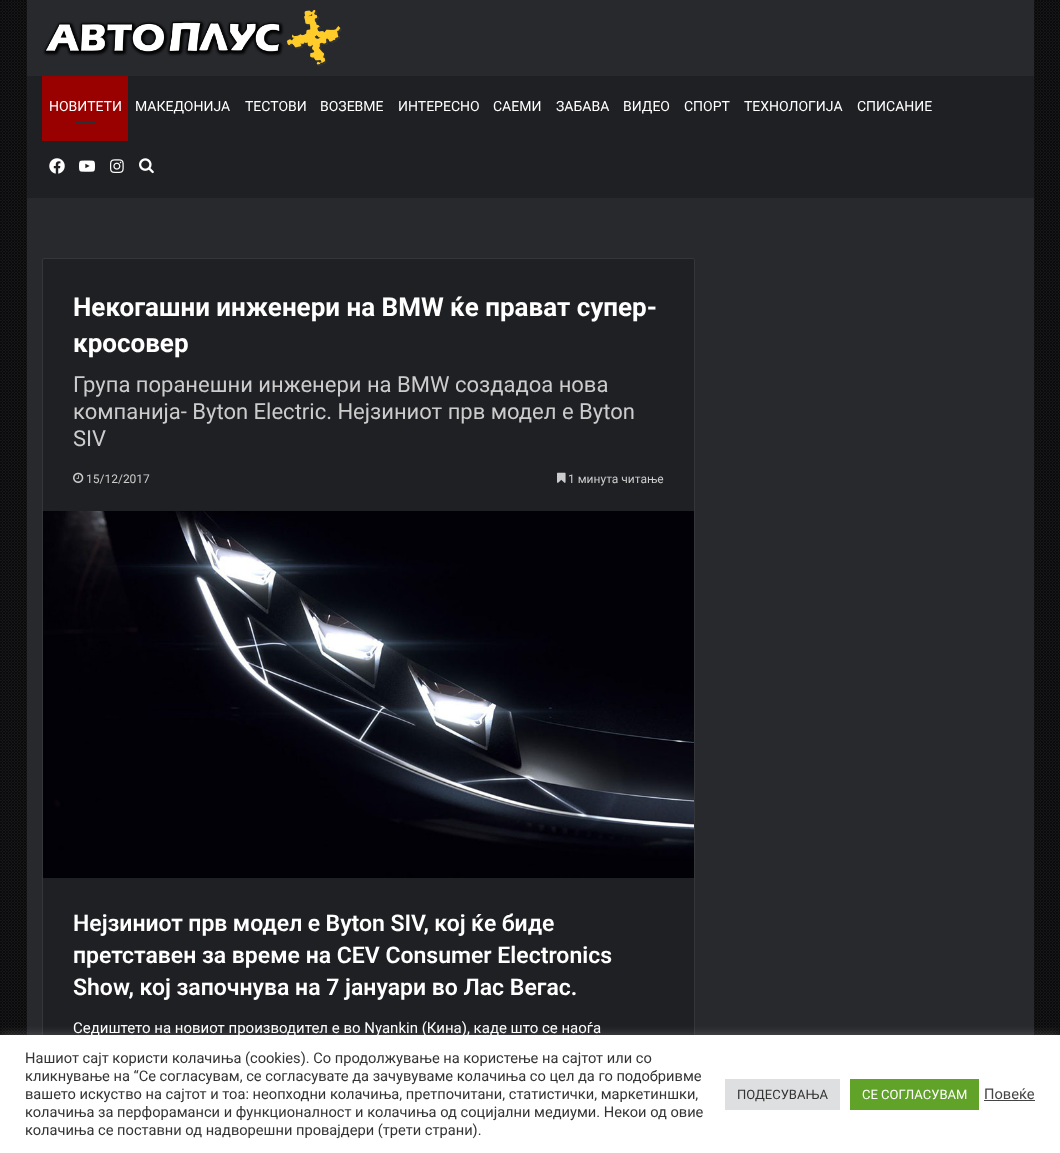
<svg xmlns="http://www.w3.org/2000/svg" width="1060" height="1153">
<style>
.a{font:14px Roboto;fill:#fff}
.b{font:bold 26px Roboto;fill:#fff}
.c{font:22px Roboto;fill:#ccc}
.d{font:12px Roboto;fill:#ccc}
.e{font:600 23px Roboto;fill:#fff}
.f{font:15px Roboto;fill:#fff}
.g{font:14.65px Roboto;fill:#333}
.h{font:13px Roboto;fill:#333}
.i{font:13px Roboto;fill:#fff}
.j{font:14.65px Roboto;fill:#444}
</style>
<rect width="100%" height="100%" fill="#161619"/>
<image href="1.png" x="0" y="0" width="1060" height="1035"/>
<path fill="#27292d" d="M27 0h1007v1035H27z"/>
<image href="2.png" x="43" y="10" width="299" height="56"/>
<path fill="#1f2024" d="M27 76h1007v122H27z"/>
<path fill="#900" d="M42 76h86v65H42z"/>
<path fill="#2c2f34" d="M75 122h20v2H75z"/>
<image href="3.png" x="49" y="158" width="16" height="16"/>
<image href="4.png" x="79" y="160" width="16" height="12"/>
<image href="5.png" x="110" y="159" width="14" height="14"/>
<image href="6.png" x="139" y="158" width="15" height="16"/>
<rect fill="#1f2024" stroke="#35363a" x="42.5" y="258.5" width="652" height="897" rx="1.5"/>
<image href="7.png" x="73" y="472" width="11" height="11"/>
<image href="8.png" x="557" y="472" width="9" height="11"/>
<image href="9.png" x="43" y="511" width="651" height="367"/>
<path fill="#acabab4d" filter="blur(5px)" d="M0 1034h1060v118H0z"/>
<path fill="#fff" d="M0 1035h1060v118H0z"/>
<path fill="#dedfe0" d="M725 1079h115v31H725z"/>
<path fill="#61a229" d="M850 1079h129v31H850z"/>
<path fill="#444" d="M984 1100h51v1H984z"/>
<text class="a" x="49" y="111">НОВИТЕТИ</text>
<text class="a" x="135" y="111">МАКЕДОНИЈА</text>
<text class="a" x="245" y="111">ТЕСТОВИ</text>
<text class="a" x="320" y="111">ВОЗЕВМЕ</text>
<text class="a" x="398" y="111">ИНТЕРЕСНО</text>
<text class="a" x="493" y="111">САЕМИ</text>
<text class="a" x="556" y="111">ЗАБАВА</text>
<text class="a" x="623" y="111">ВИДЕО</text>
<text class="a" x="684" y="111">СПОРТ</text>
<text class="a" x="744" y="111">ТЕХНОЛОГИЈА</text>
<text class="a" x="857" y="111">СПИСАНИЕ</text>
<text class="b" x="73" y="316">Некогашни инженери на BMW ќе прават супер-</text>
<text class="b" x="73" y="352">кросовер</text>
<text class="c" x="73" y="392">Група поранешни инженери на BMW создадоа нова</text>
<text class="c" x="73" y="419">компанија- Byton Electric. Нејзиниот прв модел е Byton</text>
<text class="c" x="73" y="446">SIV</text>
<text class="d" x="86" y="483">15/12/2017</text>
<text class="d" x="568" y="483">1 минута читање</text>
<text class="e" x="73" y="931" word-spacing="-0.25">Нејзиниот прв модел е Byton SIV, кој ќе биде</text>
<text class="e" x="73" y="963">претставен за време на CEV Consumer Electronics</text>
<text class="e" x="73" y="995">Show, кој започнува на 7 јануари во Лас Вегас.</text>
<text class="f" x="73" y="1033">Седиштето на новиот производител е во Nyankin (Кина), каде што се наоѓа</text>
<text class="g" x="25" y="1063">Нашиот сајт користи колачиња (cookies). Со продолжување на користење на сајтот или со</text>
<text class="g" x="25" y="1081">кликнување на “Се согласувам, се согласувате да зачувуваме колачиња со цел да го подобривме</text>
<text class="g" x="25" y="1099">вашето искуство на сајтот и тоа: неопходни колачиња, претпочитани, статистички, маркетиншки,</text>
<text class="g" x="25" y="1117">колачиња за перфораманси и функционалност и колачиња од социјални медиуми. Некои од овие</text>
<text class="g" x="25" y="1135">колачиња се поставни од надворешни провајдери (трети страни).</text>
<text class="h" x="737" y="1099">ПОДЕСУВАЊА</text>
<text class="i" x="862" y="1099">СЕ СОГЛАСУВАМ</text>
<text class="j" x="984" y="1099">Повеќе</text>
</svg>
